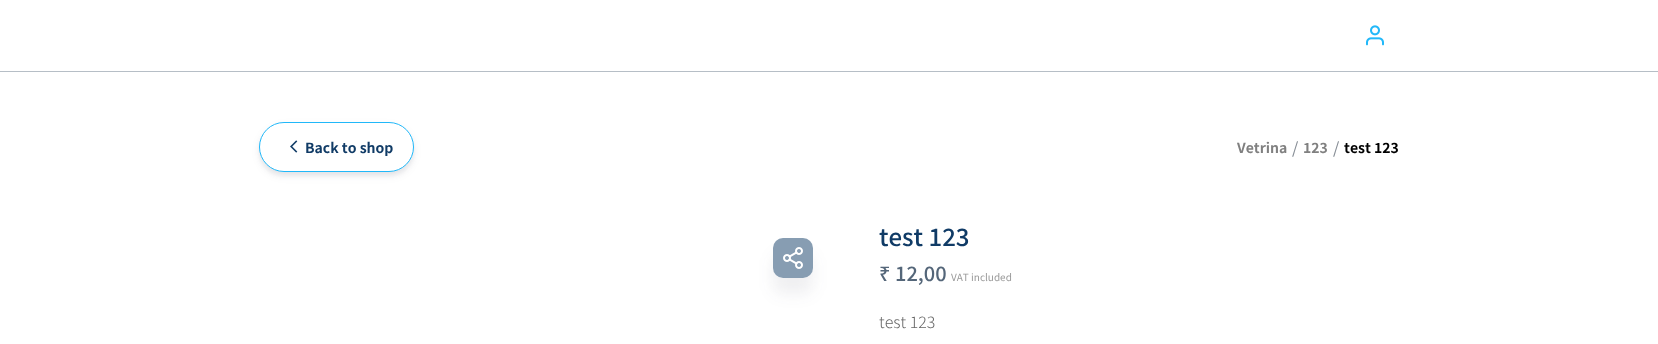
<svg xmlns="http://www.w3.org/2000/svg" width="1658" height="344">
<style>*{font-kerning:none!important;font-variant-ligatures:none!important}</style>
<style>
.a{font:bold 14px Noto Sans HK;fill:#103b66}
.b{font:bold 14px Noto Sans HK;fill:#808080}
.c{font:16px Noto Sans HK;fill:#858c94}
.d{font:bold 14px Noto Sans HK;fill:#000}
.e{font:500 24px Noto Sans HK;fill:#103b66}
.f{font:500 20px Noto Sans;fill:#546679}
.g{font:500 20px Noto Sans HK;fill:#546679}
.h{font:10px Noto Sans HK;fill:#999}
.i{font:300 16px Noto Sans HK;fill:#666}
</style>
<defs>
<clipPath id="clip1"><path d="M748 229h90v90h-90zm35 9h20c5.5 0 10 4.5 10 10v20c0 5.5-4.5 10-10 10h-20c-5.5 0-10-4.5-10-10v-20c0-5.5 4.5-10 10-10z" clip-rule="evenodd"/></clipPath>
</defs>
<rect width="100%" height="100%" fill="#fff"/>
<path fill="#b6bec6" d="M0 71h1658v1H0z"/>
<image href="1.png" x="1366" y="25" width="18" height="21"/>
<rect fill="#3232470f" filter="blur(4px)" x="259" y="126" width="155" height="50" rx="25"/>
<rect fill="#32324714" filter="blur(2px)" x="259" y="126" width="155" height="50" rx="25"/>
<rect fill="#fff" stroke="#21b8f9" x="259.5" y="122.5" width="154" height="49" rx="24.5"/>
<image href="2.png" x="290" y="140" width="8" height="13"/>
<g clip-path="url(#clip1)">
<rect fill="#32324714" filter="blur(8px)" x="773" y="254" width="40" height="40" rx="10"/>
</g>
<rect fill="#103b6680" x="773" y="238" width="40" height="40" rx="10"/>
<image href="3.png" x="783" y="247" width="20" height="22"/>
<text class="a" x="305" y="153">Back to shop</text>
<text class="b" x="1237" y="153">Vetrina</text>
<text class="c" x="1292" y="154">/</text>
<text class="b" x="1303" y="153">123</text>
<text class="c" x="1333" y="154">/</text>
<text class="d" x="1344" y="153">test 123</text>
<text class="e" x="879" y="246">test 123</text>
<text class="f" x="879" y="281">₹</text>
<text class="g" x="895" y="281">12,00</text>
<text class="h" x="951" y="281">VAT included</text>
<text class="i" x="879" y="328">test 123</text>
</svg>
